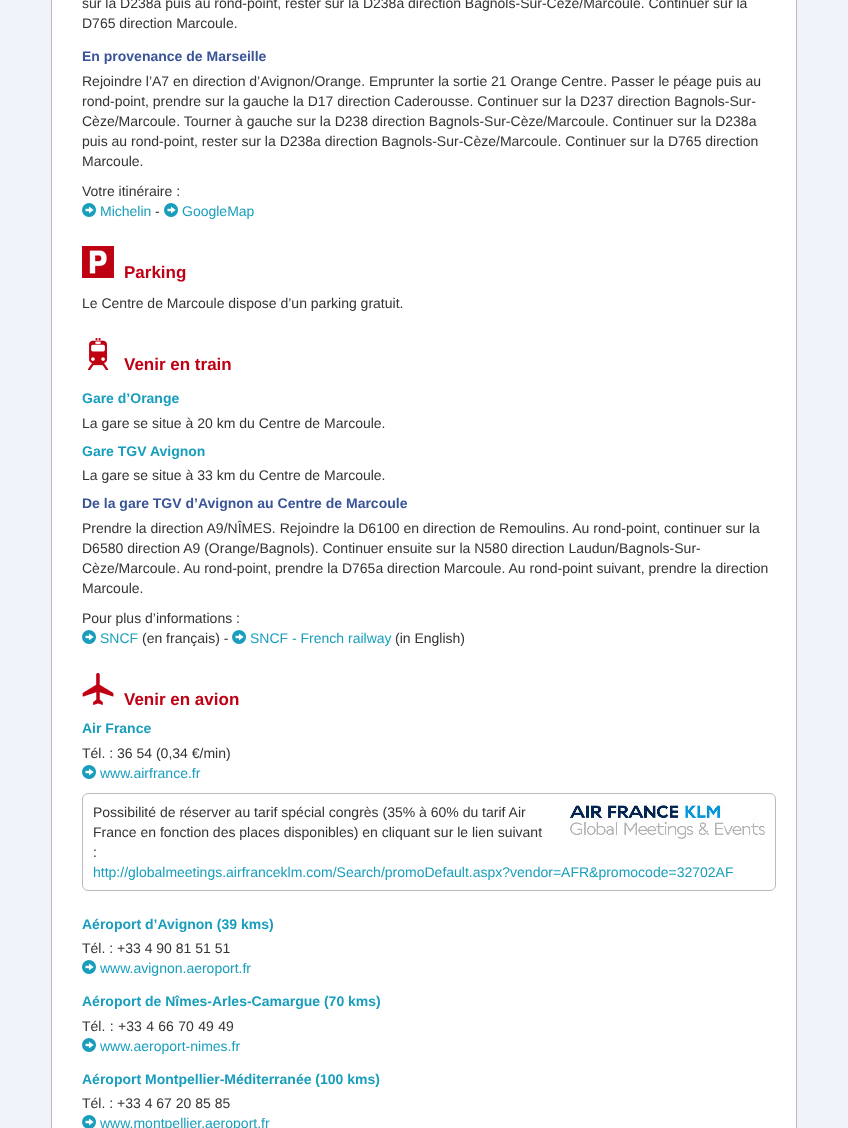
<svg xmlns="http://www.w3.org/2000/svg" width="848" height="1128">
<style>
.a{font:14px Liberation Sans;fill:#333}
.b{font:bold 14px Liberation Sans;fill:#3a5498}
.c{font:14px Liberation Sans;fill:#189ebc}
.d{font:bold 17px Liberation Sans;fill:#bf0015}
.e{font:bold 14px Liberation Sans;fill:#189ebc}
</style>
<rect width="100%" height="100%" fill="#f0f4fa"/>
<path fill="#fff" d="M52 0h744v1128H52z"/>
<path fill="#bbb" fill-rule="evenodd" d="M51-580h746v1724c0 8-7 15-15 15h-716c-8 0-15-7-15-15zm1 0h744v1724c0 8-6 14-14 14h-716c-8 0-14-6-14-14z"/>
<image href="1.png" x="82" y="203" width="14" height="14"/>
<image href="1.png" x="164" y="203" width="14" height="14"/>
<image href="2.png" x="82" y="246" width="32" height="32"/>
<image href="3.png" x="87" y="338" width="22" height="32"/>
<image href="1.png" x="82" y="630" width="14" height="14"/>
<image href="1.png" x="232" y="630" width="14" height="14"/>
<image href="4.png" x="82" y="673" width="32" height="32"/>
<image href="1.png" x="82" y="765" width="14" height="14"/>
<rect fill="none" stroke="#bbb" x="82.5" y="793.5" width="693" height="97" rx="5.5"/>
<image href="5.png" x="567" y="802" width="199" height="37"/>
<image href="1.png" x="82" y="960" width="14" height="14"/>
<image href="1.png" x="82" y="1038" width="14" height="14"/>
<image href="6.png" x="82" y="1115" width="14" height="13"/>
<text class="a" x="82" y="8">sur la D238a puis au rond-point, rester sur la D238a direction Bagnols-Sur-Cèze/Marcoule. Continuer sur la</text>
<text class="a" x="82" y="28">D765 direction Marcoule.</text>
<text class="b" x="82" y="61">En provenance de Marseille</text>
<text class="a" x="82" y="86">Rejoindre l’A7 en direction d’Avignon/Orange. Emprunter la sortie 21 Orange Centre. Passer le péage puis au</text>
<text class="a" x="82" y="106">rond-point, prendre sur la gauche la D17 direction Caderousse. Continuer sur la D237 direction Bagnols-Sur-</text>
<text class="a" x="82" y="126">Cèze/Marcoule. Tourner à gauche sur la D238 direction Bagnols-Sur-Cèze/Marcoule. Continuer sur la D238a</text>
<text class="a" x="82" y="146">puis au rond-point, rester sur la D238a direction Bagnols-Sur-Cèze/Marcoule. Continuer sur la D765 direction</text>
<text class="a" x="82" y="166">Marcoule.</text>
<text class="a" x="82" y="196">Votre itinéraire :</text>
<text class="c" x="100" y="216">Michelin</text>
<text class="a" x="155" y="216">-</text>
<text class="c" x="182" y="216">GoogleMap</text>
<text class="d" x="124" y="278">Parking</text>
<text class="a" x="82" y="308">Le Centre de Marcoule dispose d’un parking gratuit.</text>
<text class="d" x="124" y="370">Venir en train</text>
<text class="e" x="82" y="403">Gare d’Orange</text>
<text class="a" x="82" y="428">La gare se situe à 20 km du Centre de Marcoule.</text>
<text class="e" x="82" y="456">Gare TGV Avignon</text>
<text class="a" x="82" y="480">La gare se situe à 33 km du Centre de Marcoule.</text>
<text class="b" x="82" y="508">De la gare TGV d’Avignon au Centre de Marcoule</text>
<text class="a" x="82" y="533">Prendre la direction A9/NÎMES. Rejoindre la D6100 en direction de Remoulins. Au rond-point, continuer sur la</text>
<text class="a" x="82" y="553">D6580 direction A9 (Orange/Bagnols). Continuer ensuite sur la N580 direction Laudun/Bagnols-Sur-</text>
<text class="a" x="82" y="573">Cèze/Marcoule. Au rond-point, prendre la D765a direction Marcoule. Au rond-point suivant, prendre la direction</text>
<text class="a" x="82" y="593">Marcoule.</text>
<text class="a" x="82" y="623">Pour plus d’informations :</text>
<text class="c" x="100" y="643">SNCF</text>
<text class="a" x="142" y="643">(en français) -</text>
<text class="c" x="250" y="643">SNCF - French railway</text>
<text class="a" x="395" y="643">(in English)</text>
<text class="d" x="124" y="705">Venir en avion</text>
<text class="e" x="82" y="733">Air France</text>
<text class="a" x="82" y="758">Tél. : 36 54 (0,34 €/min)</text>
<text class="c" x="100" y="778">www.airfrance.fr</text>
<text class="a" x="93" y="817">Possibilité de réserver au tarif spécial congrès (35% à 60% du tarif Air</text>
<text class="a" x="93" y="837">France en fonction des places disponibles) en cliquant sur le lien suivant</text>
<text class="a" x="93" y="857">:</text>
<text class="c" x="93" y="877">http://globalmeetings.airfranceklm.com/Search/promoDefault.aspx?vendor=AFR&amp;promocode=32702AF</text>
<text class="e" x="82" y="929">Aéroport d’Avignon (39 kms)</text>
<text class="a" x="82" y="953">Tél. : +33 4 90 81 51 51</text>
<text class="c" x="100" y="973">www.avignon.aeroport.fr</text>
<text class="e" x="82" y="1006">Aéroport de Nîmes-Arles-Camargue (70 kms)</text>
<text class="a" x="82" y="1031" word-spacing="0.5">Tél. : +33 4 66 70 49 49</text>
<text class="c" x="100" y="1051">www.aeroport-nimes.fr</text>
<text class="e" x="82" y="1084">Aéroport Montpellier-Méditerranée (100 kms)</text>
<text class="a" x="82" y="1108">Tél. : +33 4 67 20 85 85</text>
<text class="c" x="100" y="1128">www.montpellier.aeroport.fr</text>
</svg>
